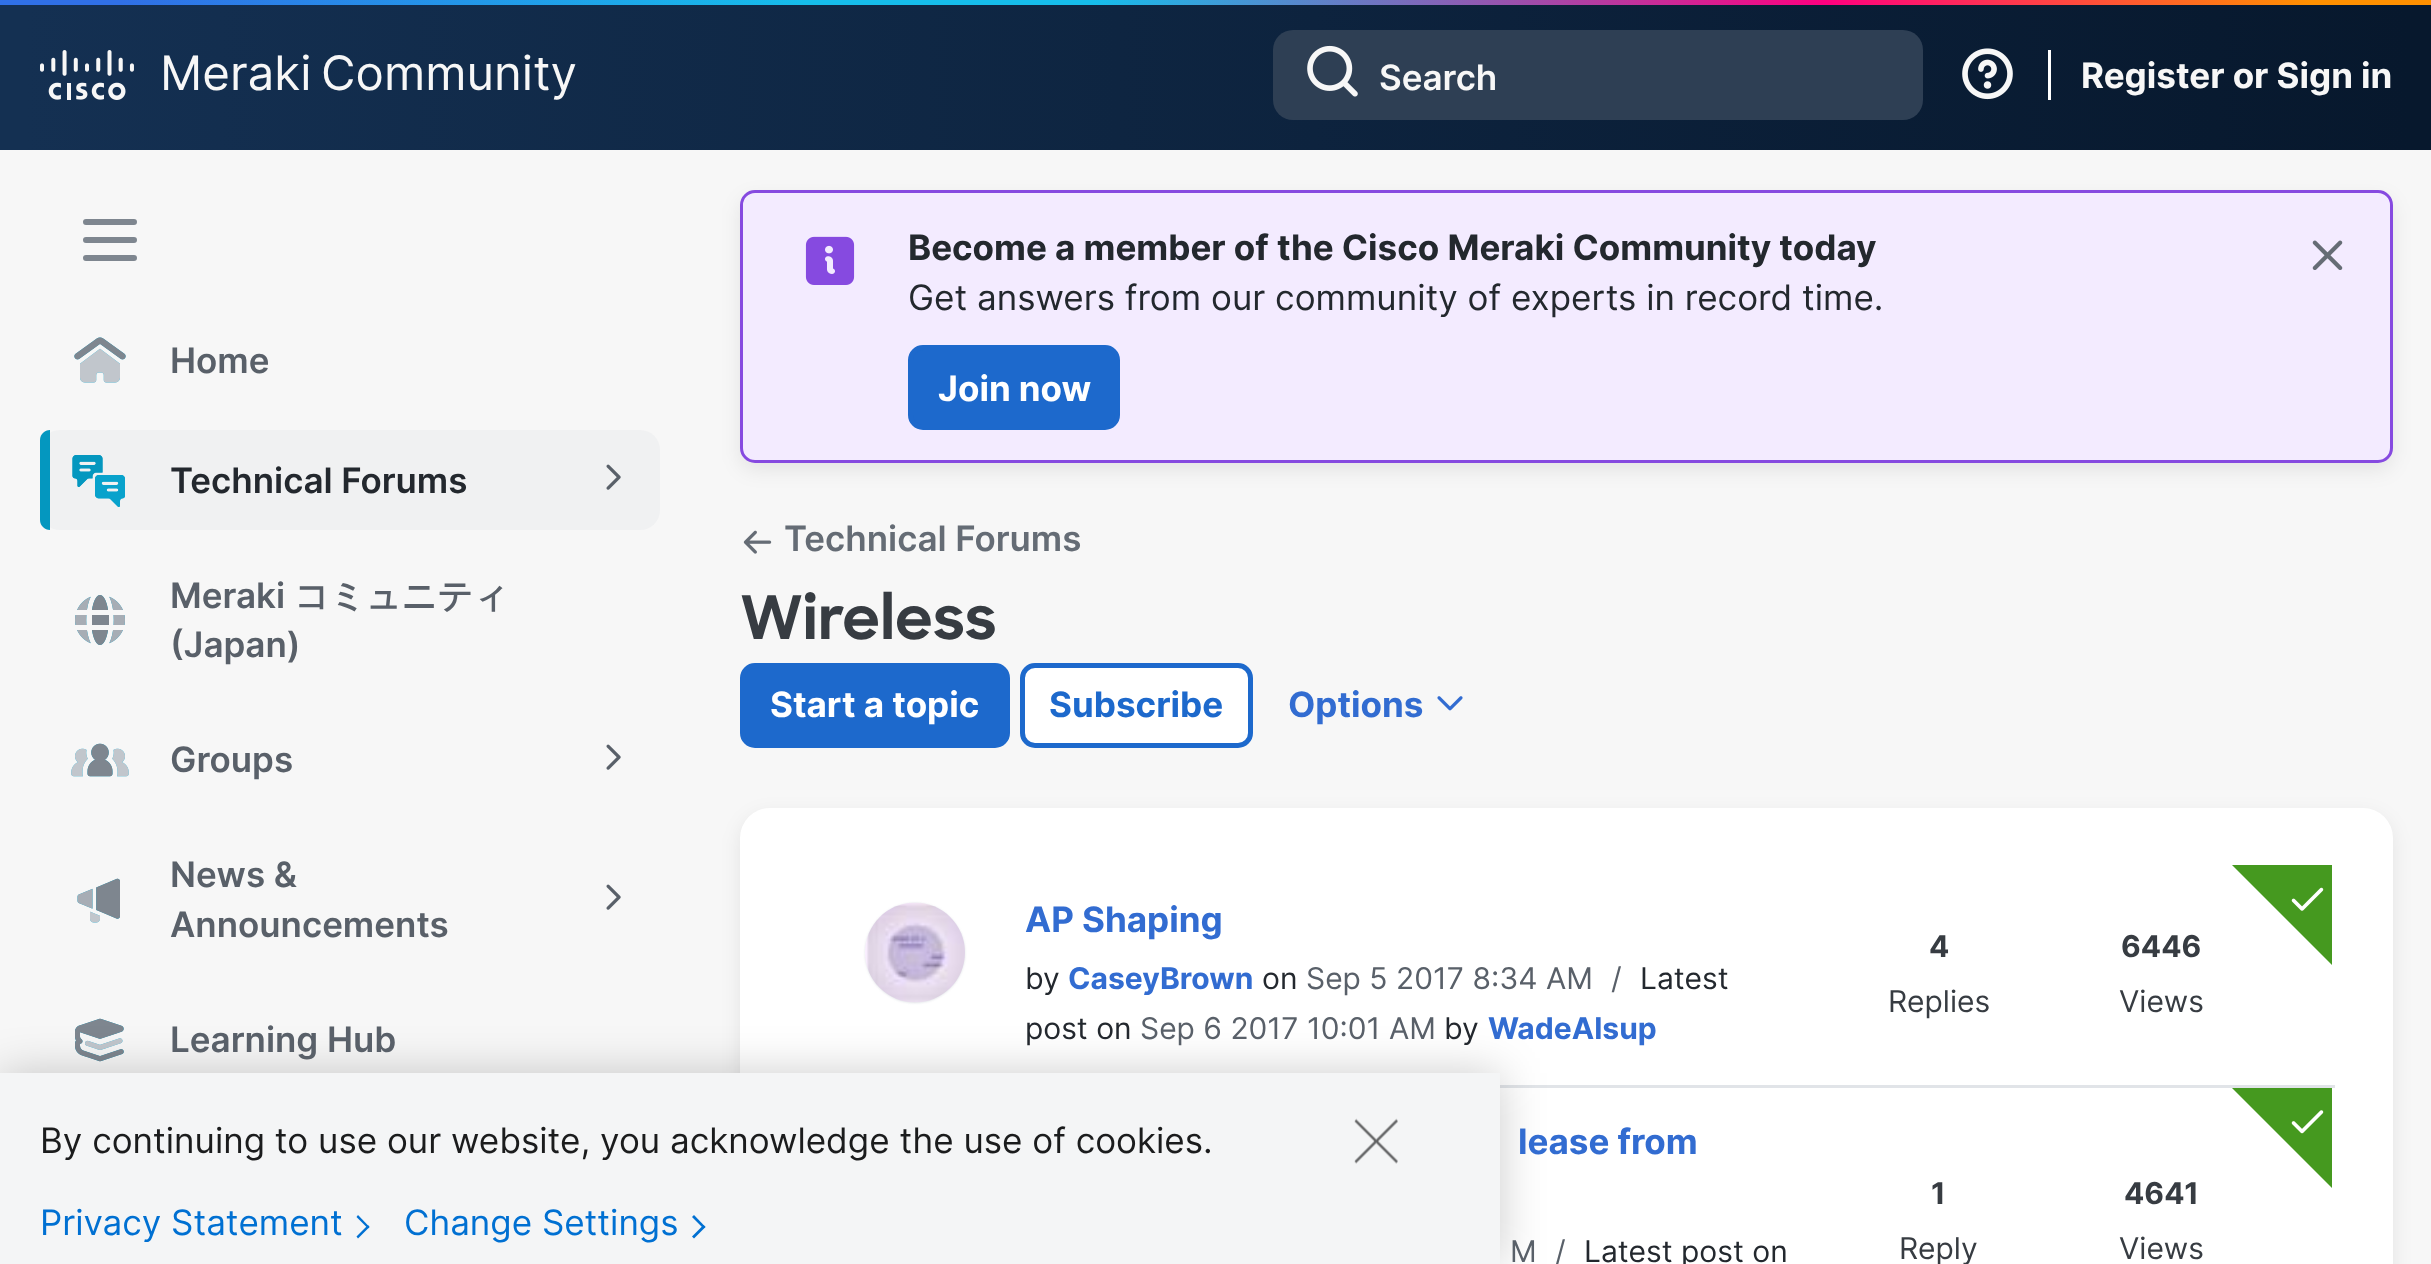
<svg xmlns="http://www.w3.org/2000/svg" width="2431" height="1264">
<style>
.a{font:47.5px Inter;fill:#f7f7f7}
.b{font:600 35px Inter;fill:#f7f7f7}
.c{font:bold 35px Inter;fill:#f7f7f7}
.d{font:600 35px Inter;fill:#596069}
.e{font:600 35px Inter;fill:#23282e}
.f{font:bold 35px WenQuanYi Zen Hei;fill:#596069}
.g{font:bold 35px Inter;fill:#23282e}
.h{font:35px Inter;fill:#23282e}
.i{font:bold 35px Inter;fill:#fff}
.j{font:600 35px Inter;fill:#656c75}
.k{font:bold 60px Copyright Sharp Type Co;fill:#373c42}
.l{font:bold 35px Inter;fill:#1d69cc}
.m{font:bold 35px Inter;fill:#326cd1}
.n{font:30px Inter;fill:#23282e}
.o{font:bold 30px Inter;fill:#326cd1}
.p{font:30px Inter;fill:#596069}
.q{font:bold 30px Inter;fill:#373c42}
.r{font:30px Inter;fill:#373c42}
.s{font:35px Inter;fill:#1b1c1d}
.t{font:35px Inter;fill:#0070d2}
</style>
<defs>
<linearGradient id="g1" gradientUnits="userSpaceOnUse" x1="0" y1="75" x2="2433" y2="75"><stop offset="0.01" stop-color="#143052"/><stop offset="0.99" stop-color="#07182d"/></linearGradient>
<linearGradient id="g2" gradientUnits="userSpaceOnUse" x1="0" y1="2.5" x2="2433" y2="2.5"><stop offset="0.05" stop-color="#3070e7"/><stop offset="0.33" stop-color="#16bdeb"/><stop offset="0.45" stop-color="#16bdeb"/><stop offset="0.75" stop-color="#ff007f"/><stop offset="0.95" stop-color="#ff9000"/></linearGradient>
</defs>
<rect width="100%" height="100%" fill="#f7f7f7"/>
<path fill="url(#g1)" d="M0 5h2431v145H0z"/>
<path fill="url(#g2)" d="M0 0h2431v5H0z"/>
<image href="1.png" x="40" y="50" width="94" height="50"/>
<rect fill="#2e3f54" x="1273" y="30" width="650" height="90" rx="20"/>
<image href="2.png" x="1307" y="45" width="51" height="52"/>
<image href="3.png" x="1962" y="48" width="51" height="52"/>
<path fill="#fff" d="M2048 50h3v50H2048z"/>
<path fill="none" stroke="#7e868f" stroke-width="6" stroke-linecap="round" d="M86 222h48m-48 18h48m-48 18h48"/>
<image href="4.png" x="74" y="337" width="52" height="46"/>
<image href="5.png" x="74" y="337" width="52" height="46"/>
<rect fill="#f0f1f2" x="40" y="430" width="620" height="100" rx="20"/>
<path fill="#0497bf" d="M50 430v100c-5.5 0-10-4.5-10-10v-80c0-5.5 4.5-10 10-10z"/>
<image href="6.png" x="72" y="455" width="53" height="52"/>
<image href="7.png" x="72" y="455" width="53" height="52"/>
<image href="8.png" x="606" y="464" width="15" height="26"/>
<image href="9.png" x="75" y="595" width="50" height="50"/>
<image href="10.png" x="75" y="595" width="50" height="50"/>
<image href="11.png" x="71" y="743" width="58" height="34"/>
<image href="12.png" x="71" y="743" width="58" height="34"/>
<image href="13.png" x="606" y="744" width="15" height="26"/>
<image href="14.png" x="77" y="878" width="43" height="45"/>
<image href="15.png" x="77" y="878" width="43" height="45"/>
<image href="13.png" x="606" y="884" width="15" height="26"/>
<image href="16.png" x="75" y="1018" width="49" height="44"/>
<image href="17.png" x="75" y="1018" width="49" height="44"/>
<rect fill="#00000014" filter="blur(10px)" x="740" y="198" width="1653" height="272" rx="15"/>
<rect fill="#f3ebff" stroke="#864ae0" stroke-width="3" x="741.5" y="191.5" width="1650" height="270" rx="13.5"/>
<image href="18.png" x="805" y="236" width="50" height="49"/>
<rect fill="#1d69cc" stroke="#1d69cc" stroke-width="5" x="910.5" y="347.5" width="207" height="80" rx="12.5"/>
<image href="19.png" x="2312" y="240" width="31" height="30"/>
<image href="20.png" x="743" y="530" width="29" height="24"/>
<rect fill="#1d69cc" stroke="#1d69cc" stroke-width="5" x="742.5" y="665.5" width="265" height="80" rx="12.5"/>
<rect fill="#fff" stroke="#1d69cc" stroke-width="5" x="1022.5" y="665.5" width="228" height="80" rx="12.5"/>
<image href="21.png" x="1437" y="696" width="26" height="15"/>
<rect fill="#00000014" filter="blur(10px)" x="740" y="815" width="1653" height="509" rx="30"/>
<rect fill="#fff" x="740" y="808" width="1653" height="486" rx="30"/>
<rect fill="#e1e4e8" filter="blur(1px)" x="865" y="903" width="100" height="100" rx="50"/>
<image href="22.png" x="865" y="902" width="100" height="101"/>
<path fill="#45991f" d="M2232 865h100v100z"/>
<image href="23.png" x="2291" y="887" width="33" height="24"/>
<path fill="#e1e4e8" d="M1500 1085h835v3H1500z"/>
<path fill="#45991f" d="M2232 1088h100v100z"/>
<image href="24.png" x="2291" y="1110" width="33" height="24"/>
<path fill="#00000033" filter="blur(22.5px)" d="M0 1073h1500v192H0z"/>
<path fill="#f4f5f6" d="M0 1073h1500v191H0z"/>
<path fill="#0070d2" d="M358 1215l11.5 12l-1.5 1.5l-11.5-11.5z"/>
<path fill="#0070d2" d="M368 1225l1.5 2l-11.5 11.5l-1.5-2z"/>
<path fill="#0070d2" d="M694 1215l11.5 12l-2 1.5l-11.5-11.5z"/>
<path fill="#0070d2" d="M703.5 1225l2 2l-11.5 11.5l-2-2z"/>
<image href="25.png" x="1354" y="1118" width="44" height="46"/>
<text class="a" x="160" y="90">Meraki</text>
<text class="a" x="321" y="90">Community</text>
<text class="b" x="1379" y="90">Search</text>
<text class="c" x="2081" y="88">Register or Sign in</text>
<text class="d" x="170" y="373">Home</text>
<text class="e" x="170" y="493">Technical Forums</text>
<text class="d" x="170" y="608">Meraki</text>
<text class="f" x="294" y="608">コミュニティ</text>
<text class="d" x="170" y="657">(Japan)</text>
<text class="d" x="170" y="772">Groups</text>
<text class="d" x="170" y="887">News &amp;</text>
<text class="d" x="170" y="937">Announcements</text>
<text class="d" x="170" y="1052">Learning Hub</text>
<text class="g" x="908" y="260">Become a member of the Cisco Meraki Community today</text>
<text class="h" x="908" y="310">Get answers from our community of experts in record time.</text>
<text class="i" x="938" y="401">Join now</text>
<text class="j" x="784" y="551">Technical Forums</text>
<text class="k" x="740" y="639">Wireless</text>
<text class="i" x="770" y="717">Start a topic</text>
<text class="l" x="1049" y="717">Subscribe</text>
<text class="m" x="1288" y="717">Options</text>
<text class="m" x="1025" y="932">AP Shaping</text>
<text class="n" x="1025" y="989">by</text>
<text class="o" x="1068" y="989">CaseyBrown</text>
<text class="n" x="1262" y="989">on</text>
<text class="p" x="1306" y="989">Sep 5 2017 8:34 AM</text>
<text class="p" x="1611" y="989">/</text>
<text class="n" x="1640" y="989">Latest</text>
<text class="n" x="1025" y="1039">post on</text>
<text class="p" x="1140" y="1039">Sep 6 2017 10:01 AM</text>
<text class="n" x="1444" y="1039">by</text>
<text class="o" x="1488" y="1039">WadeAlsup</text>
<text class="q" x="1929" y="957">4</text>
<text class="r" x="1888" y="1012">Replies</text>
<text class="q" x="2121" y="957">6446</text>
<text class="r" x="2119" y="1012">Views</text>
<text class="m" x="1518" y="1154">lease from</text>
<text class="p" x="1510" y="1262">M</text>
<text class="p" x="1555" y="1262">/</text>
<text class="n" x="1584" y="1262">Latest post on</text>
<text class="q" x="1931" y="1204">1</text>
<text class="r" x="1899" y="1259">Reply</text>
<text class="q" x="2124" y="1204">4641</text>
<text class="r" x="2119" y="1259">Views</text>
<text class="s" x="40" y="1153">By continuing to use our website, you acknowledge the use of cookies.</text>
<text class="t" x="40" y="1235">Privacy Statement</text>
<text class="t" x="404" y="1235">Change Settings</text>
</svg>
